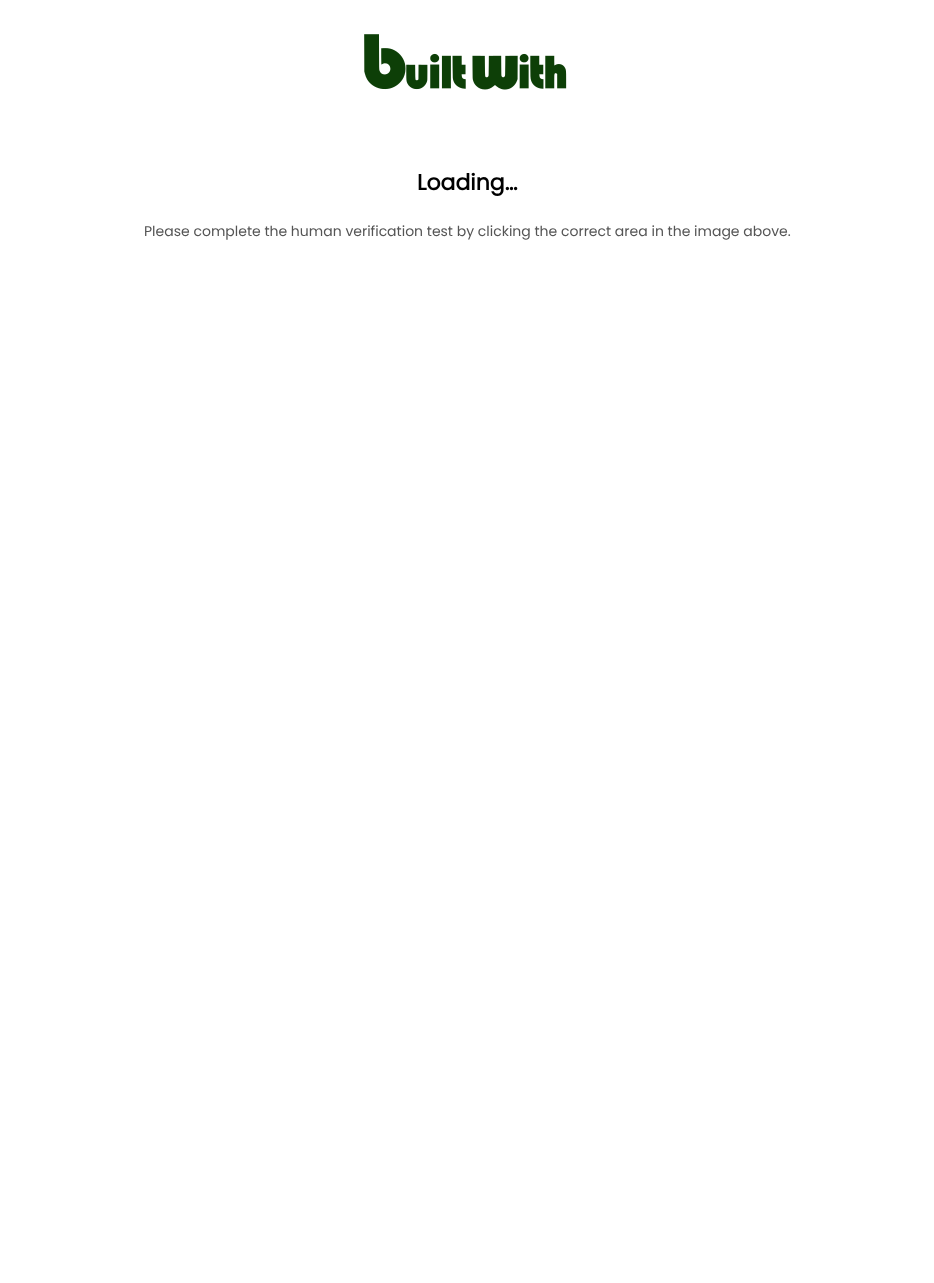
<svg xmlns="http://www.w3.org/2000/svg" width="934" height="1283">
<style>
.a{font:bold 22px Poppins;fill:#000}
.b{font:14px Poppins;fill:#555}
</style>
<rect width="100%" height="100%" fill="#fff"/>
<image href="1.png" x="364" y="34" width="203" height="56"/>
<text class="a" x="417" y="190">Loading…</text>
<text class="b" x="144" y="236">Please complete the human verification test by clicking the correct area in the image above.</text>
</svg>
